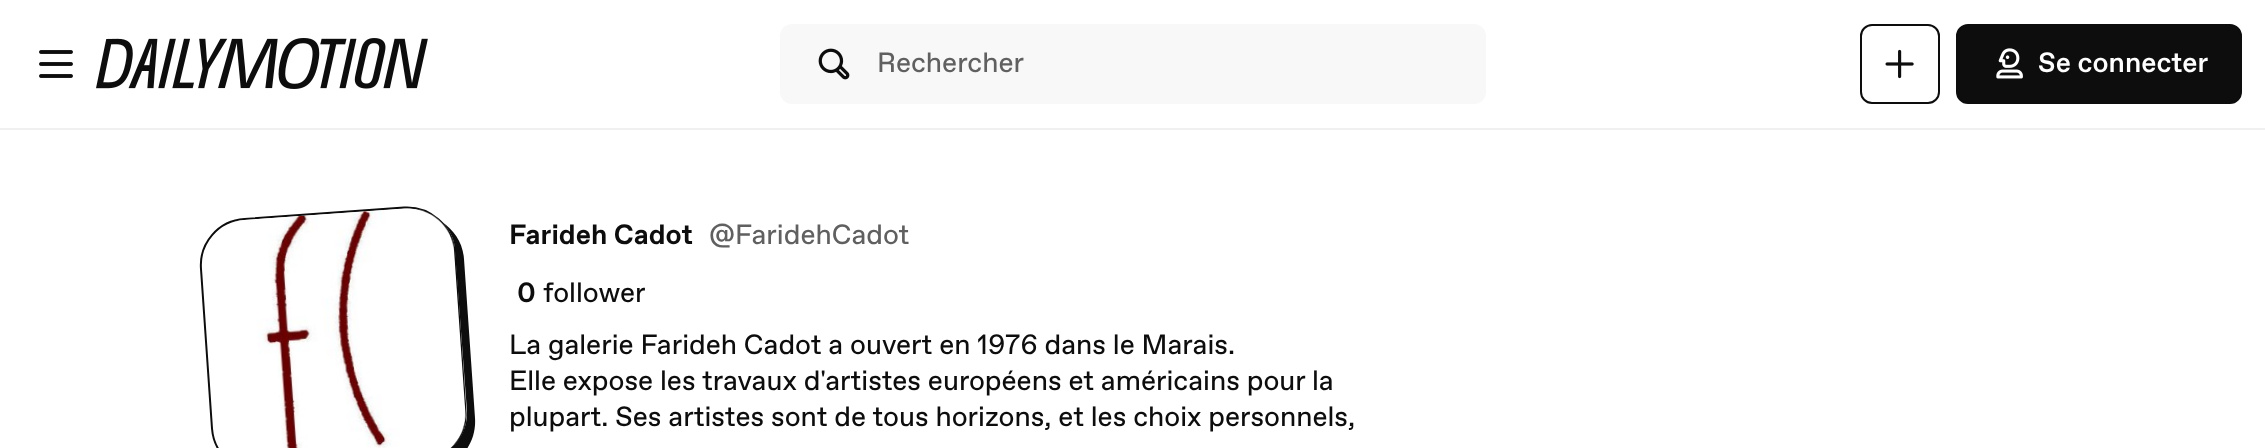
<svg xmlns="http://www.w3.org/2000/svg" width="2265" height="448">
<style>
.a{font:28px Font;fill:#606060}
.b{font:500 28px Font;fill:#fff}
.c{font:bold 28px Font;fill:#0d0d0d}
.d{font:28px Font;fill:#0d0d0d}
</style>
<rect width="100%" height="100%" fill="#fff"/>
<path fill="#f0f0f0" d="M0 128h2265v2H0z"/>
<image href="1.png" x="39" y="50" width="34" height="28"/>
<image href="2.png" x="96" y="38" width="332" height="51"/>
<rect fill="#f8f8f8" x="780" y="24" width="706" height="80" rx="12"/>
<image href="3.png" x="818" y="48" width="32" height="32"/>
<rect fill="none" stroke="#0d0d0d" stroke-width="2" x="1861" y="25" width="78" height="78" rx="11"/>
<image href="4.png" x="1885" y="49" width="29" height="30"/>
<rect fill="#0d0d0d" stroke="#0d0d0d" stroke-width="2" x="1957" y="25" width="284" height="78" rx="11"/>
<image href="5.png" x="1996" y="48" width="27" height="31"/>
<path fill="#0d0d0d" d="M232 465c9 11 23 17 39 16l160-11c26-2 46-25 44-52l-11-159c-1-16-10-29-22-37c8 8 13 18 13 29l12 160c1 26-19 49-45 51l-160 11c-11 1-22-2-30-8z"/>
<path fill="none" stroke="#0d0d0d" stroke-width="2" d="M244.5 219l159.5-11.5c26-1.5 48.5 18 50.5 44l11 159.5c2 26-17.5 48.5-43.5 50l-159.5 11.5c-26 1.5-48.5-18-50.5-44l-11-159.5c-2-26 17.5-48.5 43.5-50z"/>
<image href="6.png" x="202" y="208" width="264" height="240"/>
<text class="a" x="877" y="72">Rechercher</text>
<text class="b" x="2038" y="72">Se connecter</text>
<text class="c" x="509" y="244">Farideh Cadot</text>
<text class="a" x="709" y="244">@FaridehCadot</text>
<text class="c" x="517" y="302">0</text>
<text class="d" x="543" y="302">follower</text>
<text class="d" x="509" y="354">La galerie Farideh Cadot a ouvert en 1976 dans le Marais.</text>
<text class="d" x="509" y="390">Elle expose les travaux d'artistes européens et américains pour la</text>
<text class="d" x="509" y="426">plupart. Ses artistes sont de tous horizons, et les choix personnels,</text>
</svg>
